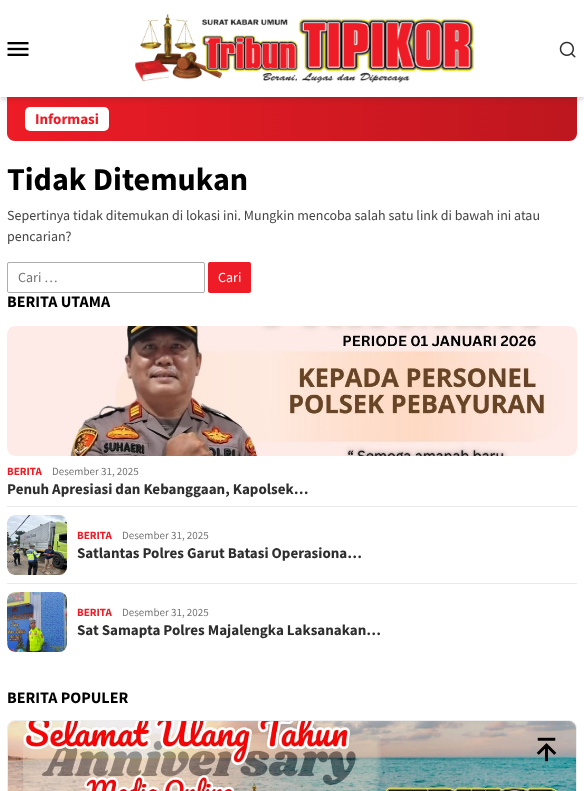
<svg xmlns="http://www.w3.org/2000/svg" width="584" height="791">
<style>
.a{font:bold 15px Source Sans Pro;fill:#ed1c26}
.b{font:bold 32px Source Sans Pro;fill:#000}
.c{font:14px Source Sans Pro;fill:#444}
.d{font:14px Source Sans Pro;fill:#757575}
.e{font:14px Source Sans Pro;fill:#fff}
.f{font:bold 16px Source Sans Pro;fill:#000}
.g{font:bold 11px Source Sans Pro;fill:#ed1c26}
.h{font:11px Source Sans Pro;fill:#757575}
.i{font:bold 15px Source Sans Pro;fill:#2e2e2e}
</style>
<defs>
<linearGradient id="g1" gradientUnits="userSpaceOnUse" x1="7" y1="119" x2="577" y2="119"><stop offset="0" stop-color="#000" stop-opacity="0"/><stop offset="1" stop-color="#000" stop-opacity="0.2"/></linearGradient>
</defs>
<rect width="100%" height="100%" fill="#fff"/>
<path fill="#ed1c26" d="M7 97h570v36c0 4.5-3.5 8-8 8h-554c-4.5 0-8-3.5-8-8z"/>
<path fill="url(#g1)" d="M7 97h570v36c0 4.5-3.5 8-8 8h-554c-4.5 0-8-3.5-8-8z"/>
<path fill="#3434342e" filter="blur(2px)" d="M0 3h584v97H0z"/>
<path fill="#fff" d="M0 0h584v97H0z"/>
<image href="1.png" x="7" y="42" width="22" height="14"/>
<image href="2.png" x="135" y="14" width="339" height="69"/>
<image href="3.png" x="559" y="41" width="17" height="17"/>
<rect fill="#fff" x="25" y="107" width="84" height="24" rx="5"/>
<rect fill="none" stroke="#adadad" x="7.5" y="262.5" width="197" height="30" rx="1.5"/>
<rect fill="#ed1c26" x="208" y="262" width="43" height="31" rx="2"/>
<path fill="#e9e9e9" d="M7 506h570v1H7z"/>
<image href="4.png" x="7" y="326" width="570" height="130"/>
<path fill="#e9e9e9" d="M7 583h570v1H7z"/>
<image href="5.png" x="7" y="515" width="60" height="60"/>
<image href="6.png" x="7" y="592" width="60" height="60"/>
<rect fill="none" stroke="#eee" x="7.5" y="720.5" width="569" height="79" rx="7.5"/>
<image href="7.png" x="8" y="721" width="568" height="70"/>
<image href="8.png" x="536" y="737" width="21" height="25"/>
<text class="a" x="35" y="124">Informasi</text>
<text class="b" x="7" y="190">Tidak Ditemukan</text>
<text class="c" x="7" y="220">Sepertinya tidak ditemukan di lokasi ini. Mungkin mencoba salah satu link di bawah ini atau</text>
<text class="c" x="7" y="241">pencarian?</text>
<text class="d" x="18" y="282">Cari …</text>
<text class="e" x="218" y="282">Cari</text>
<text class="f" x="7" y="307">BERITA UTAMA</text>
<text class="g" x="7" y="475">BERITA</text>
<text class="h" x="52" y="475">Desember 31, 2025</text>
<text class="i" x="7" y="494">Penuh Apresiasi dan Kebanggaan, Kapolsek…</text>
<text class="g" x="77" y="539">BERITA</text>
<text class="h" x="122" y="539">Desember 31, 2025</text>
<text class="i" x="77" y="558">Satlantas Polres Garut Batasi Operasiona…</text>
<text class="g" x="77" y="616">BERITA</text>
<text class="h" x="122" y="616">Desember 31, 2025</text>
<text class="i" x="77" y="635">Sat Samapta Polres Majalengka Laksanakan…</text>
<text class="f" x="7" y="703">BERITA POPULER</text>
</svg>
